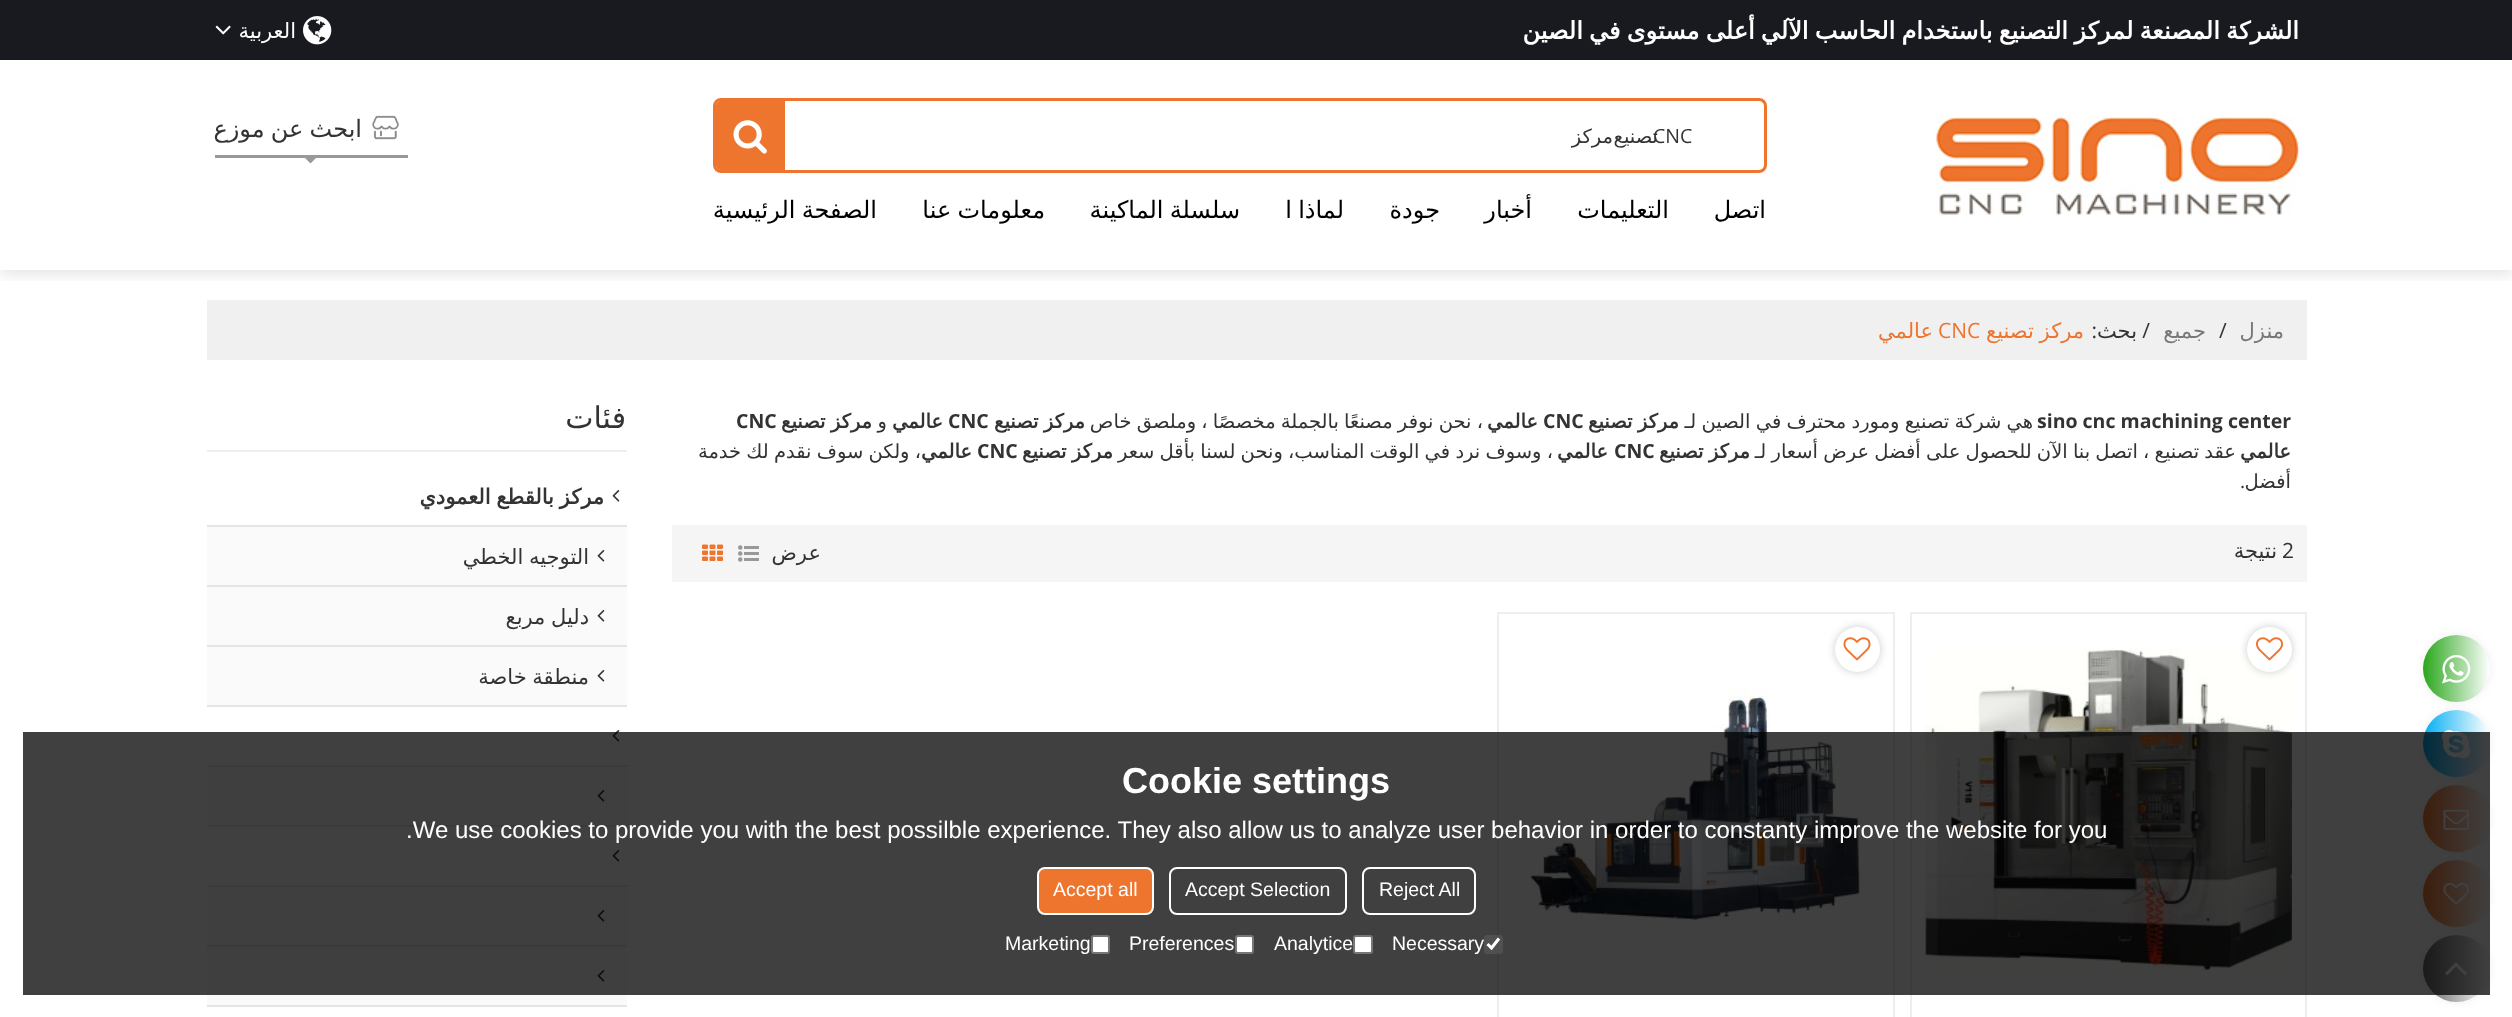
<svg xmlns="http://www.w3.org/2000/svg" width="2512" height="1017">
<style>
.a{font:bold 24px DejaVu Sans;direction:rtl;fill:#fff}
.b{font:21px DejaVu Sans;direction:rtl;fill:#fff}
.c{font:19.5px DejaVu Sans;direction:rtl;fill:#333}
.d{font:19.5px Open Sans;fill:#333}
.e{font:24px DejaVu Sans;direction:rtl;fill:#000}
.f{font:24px DejaVu Sans;direction:rtl;fill:#333}
.g{font:21px DejaVu Sans;direction:rtl;fill:#777}
.h{font:21px Open Sans;fill:#333}
.i{font:21px Open Sans;direction:rtl;fill:#333}
.j{font:21px DejaVu Sans;direction:rtl;fill:#333}
.k{font:21px DejaVu Sans;direction:rtl;fill:#ee752e}
.l{font:21px Open Sans;fill:#ee752e}
.m{font:bold 19.5px Open Sans;fill:#333}
.n{font:bold 19.5px DejaVu Sans;direction:rtl;fill:#333}
.o{font:19.5px Open Sans;direction:rtl;fill:#333}
.p{font:30px DejaVu Sans;direction:rtl;fill:#333}
.q{font:bold 21px DejaVu Sans;direction:rtl;fill:#333}
.r{font:bold 36px Liberation Sans;fill:#fff}
.s{font:24px Liberation Sans;fill:#fff}
.t{font:19.5px Liberation Sans;fill:#fff}
</style>
<defs>
<clipPath id="clip1"><path d="M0 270h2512v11H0z"/></clipPath>
<linearGradient id="g1" gradientUnits="userSpaceOnUse" x1="2423" y1="668" x2="2490" y2="668"><stop offset="0" stop-color="#29a61a"/><stop offset="1" stop-color="#fff"/></linearGradient>
<linearGradient id="g2" gradientUnits="userSpaceOnUse" x1="2423" y1="743" x2="2490" y2="743"><stop offset="0" stop-color="#01aef3"/><stop offset="1" stop-color="#fff"/></linearGradient>
<linearGradient id="g3" gradientUnits="userSpaceOnUse" x1="2423" y1="818" x2="2490" y2="818"><stop offset="0" stop-color="#ee752e"/><stop offset="1" stop-color="#fff"/></linearGradient>
<linearGradient id="g4" gradientUnits="userSpaceOnUse" x1="2423" y1="893" x2="2490" y2="893"><stop offset="0" stop-color="#ee752e"/><stop offset="1" stop-color="#fff"/></linearGradient>
<linearGradient id="g5" gradientUnits="userSpaceOnUse" x1="2423" y1="968" x2="2490" y2="968"><stop offset="0" stop-color="#666"/><stop offset="1" stop-color="#fff"/></linearGradient>
<clipPath id="clip2"><path d="M1523 8h777v45H1523z"/></clipPath>
</defs>
<rect width="100%" height="100%" fill="#fff"/>
<g clip-path="url(#clip1)">
<path fill="#0000001a" filter="blur(7.5px)" d="M0 65h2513v210H0z"/>
</g>
<path fill="#191a20" d="M0 0h2512v60H0z"/>
<image href="1.png" x="303" y="16" width="29" height="29"/>
<image href="2.png" x="215" y="25" width="16" height="10"/>
<image href="3.png" x="1935" y="116" width="365" height="99"/>
<rect fill="none" stroke="#ee752e" stroke-width="3" x="714.5" y="99.5" width="1051" height="72" rx="6.5"/>
<path fill="#ee752e" d="M721 101h64v69h-64c-3 0-5-2-5-5v-59c0-3 2-5 5-5z"/>
<image href="4.png" x="733" y="120" width="34" height="34"/>
<image href="5.png" x="372" y="115" width="27" height="25"/>
<path fill="#999" d="M304.5 157.5h12l-6 6z"/>
<path fill="#999" d="M215 155h193v3H215z"/>
<path fill="#f0f0f0" d="M207 300h2100v60H207z"/>
<path fill="#f5f5f5" d="M672 525h1635v57H672z"/>
<image href="6.png" x="738" y="545" width="21" height="17"/>
<image href="7.png" x="702" y="544" width="21" height="17"/>
<path fill="none" stroke="#eee" stroke-width="2" d="M1911 613h395v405H1911z"/>
<image href="9.png" x="1924" y="647" width="368" height="325"/>
<rect fill="#00000033" filter="blur(4px)" x="2247" y="627" width="45" height="45" rx="22.5"/>
<circle fill="#fff" cx="2269.5" cy="649.5" r="22.5"/>
<image href="8.png" x="2256" y="637" width="27" height="24"/>
<path fill="none" stroke="#eee" stroke-width="2" d="M1498 613h396v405H1498z"/>
<rect fill="#00000033" filter="blur(4px)" x="1835" y="627" width="45" height="45" rx="22.5"/>
<circle fill="#fff" cx="1857.5" cy="649.5" r="22.5"/>
<image href="10.png" x="1843" y="637" width="28" height="24"/>
<image href="11.png" x="1530" y="686" width="335" height="235"/>
<path fill="#eee" d="M207 450h420v2H207z"/>
<path fill="#e5e5e5" d="M207 525h420v2H207z"/>
<image href="12.png" x="612" y="490" width="8" height="12"/>
<path fill="#fafafa" d="M207 527h420v58H207z"/>
<path fill="#e5e5e5" d="M207 585h420v2H207z"/>
<image href="13.png" x="597" y="550" width="8" height="12"/>
<path fill="#fafafa" d="M207 587h420v58H207z"/>
<path fill="#e5e5e5" d="M207 645h420v2H207z"/>
<image href="13.png" x="597" y="610" width="8" height="12"/>
<path fill="#fafafa" d="M207 647h420v58H207z"/>
<path fill="#e5e5e5" d="M207 705h420v2H207z"/>
<image href="13.png" x="597" y="670" width="8" height="12"/>
<path fill="#e5e5e5" d="M207 765h420v2H207z"/>
<image href="12.png" x="612" y="730" width="8" height="12"/>
<path fill="#fafafa" d="M207 767h420v58H207z"/>
<path fill="#e5e5e5" d="M207 825h420v2H207z"/>
<image href="13.png" x="597" y="790" width="8" height="12"/>
<path fill="#e5e5e5" d="M207 885h420v2H207z"/>
<image href="12.png" x="612" y="850" width="8" height="12"/>
<path fill="#fafafa" d="M207 887h420v58H207z"/>
<path fill="#e5e5e5" d="M207 945h420v2H207z"/>
<image href="13.png" x="597" y="910" width="8" height="12"/>
<path fill="#fafafa" d="M207 947h420v58H207z"/>
<path fill="#e5e5e5" d="M207 1005h420v2H207z"/>
<image href="13.png" x="597" y="970" width="8" height="12"/>
<rect fill="#eee" filter="blur(4px)" x="2423" y="635" width="67" height="67" rx="33.5"/>
<circle fill="url(#g1)" cx="2456.5" cy="668.5" r="33.5"/>
<image href="14.png" x="2442" y="655" width="29" height="29"/>
<rect fill="#eee" filter="blur(4px)" x="2423" y="710" width="67" height="67" rx="33.5"/>
<circle fill="url(#g2)" cx="2456.5" cy="743.5" r="33.5"/>
<image href="15.png" x="2442" y="730" width="29" height="29"/>
<rect fill="#eee" filter="blur(4px)" x="2423" y="785" width="67" height="67" rx="33.5"/>
<circle fill="url(#g3)" cx="2456.5" cy="818.5" r="33.5"/>
<image href="16.png" x="2443" y="809" width="26" height="21"/>
<rect fill="#eee" filter="blur(4px)" x="2423" y="860" width="67" height="67" rx="33.5"/>
<circle fill="url(#g4)" cx="2456.5" cy="893.5" r="33.5"/>
<image href="17.png" x="2443" y="883" width="26" height="22"/>
<rect fill="#eee" filter="blur(4px)" x="2423" y="935" width="67" height="67" rx="33.5"/>
<circle fill="url(#g5)" cx="2456.5" cy="968.5" r="33.5"/>
<image href="18.png" x="2445" y="962" width="22" height="13"/>
<path fill="#000000bf" d="M23 732h2467v263H23z"/>
<rect fill="none" stroke="#fff" stroke-width="2" x="1363" y="868" width="112" height="46" rx="7"/>
<rect fill="none" stroke="#fff" stroke-width="2" x="1170" y="868" width="176" height="46" rx="7"/>
<rect fill="#ee752e" stroke="#fff" stroke-width="2" x="1038" y="868" width="115" height="46" rx="7"/>
<rect fill="#7676764d" x="1484" y="935" width="19" height="19" rx="3"/>
<path fill="none" stroke="#fff" stroke-width="3.1" d="M1487.5 944l4 4l7.5-9.5"/>
<rect fill="#fff" stroke="#767676" stroke-width="2" x="1354" y="936" width="18" height="17" rx="2"/>
<rect fill="#fff" stroke="#767676" stroke-width="2" x="1236" y="936" width="17" height="17" rx="2"/>
<rect fill="#fff" stroke="#767676" stroke-width="2" x="1092" y="936" width="17" height="17" rx="2"/>
<g clip-path="url(#clip2)">
<text class="a" x="2299" y="39" word-spacing="-1.4">الشركة المصنعة لمركز التصنيع باستخدام الحاسب الآلي أعلى مستوى في الصين</text>
</g>
<text class="b" x="296" y="38">العربية</text>
<text class="c" x="1658" y="143">تصنيع</text>
<text class="d" x="1653" y="143">CNC</text>
<text class="c" x="1613" y="143">مركز</text>
<text class="e" x="1766" y="218">اتصل</text>
<text class="e" x="1669" y="218">التعليمات</text>
<text class="e" x="1532" y="218">أخبار</text>
<text class="e" x="1440" y="218">جودة</text>
<text class="e" x="1344" y="218" word-spacing="-1.4">لماذا ا</text>
<text class="e" x="1240" y="218" word-spacing="-1.4">سلسلة الماكينة</text>
<text class="e" x="1045" y="218" word-spacing="-1.4">معلومات عنا</text>
<text class="e" x="877" y="218" word-spacing="-1.4">الصفحة الرئيسية</text>
<text class="f" x="362" y="137" word-spacing="-1.4">ابحث عن موزع</text>
<text class="g" x="2284" y="338">منزل</text>
<text class="h" x="2219" y="338">/</text>
<text class="g" x="2206" y="338">جميع</text>
<text class="i" x="2150" y="338">/</text>
<text class="j" x="2137" y="338">بحث</text>
<text class="i" x="2097" y="338">:</text>
<text class="k" x="2084" y="338" word-spacing="-1">مركز تصنيع</text>
<text class="l" x="1938" y="338">CNC</text>
<text class="k" x="1933" y="338">عالمي</text>
<text class="m" x="2037" y="428">sino cnc machining center</text>
<text class="c" x="2033" y="428" word-spacing="-1">هي شركة تصنيع ومورد محترف في الصين لـ</text>
<text class="n" x="1679" y="428" word-spacing="-1">مركز تصنيع</text>
<text class="m" x="1543" y="428">CNC</text>
<text class="n" x="1538" y="428">عالمي</text>
<text class="c" x="1483" y="428" word-spacing="-1">، نحن نوفر مصنعًا بالجملة مخصصًا ، وملصق خاص</text>
<text class="n" x="1085" y="428" word-spacing="-1">مركز تصنيع</text>
<text class="m" x="948" y="428">CNC</text>
<text class="n" x="943" y="428">عالمي</text>
<text class="c" x="887" y="428">و</text>
<text class="n" x="872" y="428" word-spacing="-1">مركز تصنيع</text>
<text class="m" x="736" y="428">CNC</text>
<text class="n" x="2291" y="458">عالمي</text>
<text class="c" x="2236" y="458" word-spacing="-1">عقد تصنيع ، اتصل بنا الآن للحصول على أفضل عرض أسعار لـ</text>
<text class="n" x="1750" y="458" word-spacing="-1">مركز تصنيع</text>
<text class="m" x="1614" y="458">CNC</text>
<text class="n" x="1608" y="458">عالمي</text>
<text class="c" x="1553" y="458" word-spacing="-1">، وسوف نرد في الوقت المناسب، ونحن لسنا بأقل سعر</text>
<text class="n" x="1113" y="458" word-spacing="-1">مركز تصنيع</text>
<text class="m" x="977" y="458">CNC</text>
<text class="n" x="972" y="458">عالمي</text>
<text class="c" x="921" y="458" word-spacing="-1">، ولكن سوف نقدم لك خدمة</text>
<text class="c" x="2291" y="488">أفضل</text>
<text class="o" x="2245" y="488">.</text>
<text class="h" x="2282" y="558">2</text>
<text class="j" x="2277" y="558">نتيجة</text>
<text class="j" x="821" y="560">عرض</text>
<text class="p" x="626" y="428">فئات</text>
<text class="q" x="604" y="504" word-spacing="-1">مركز بالقطع العمودي</text>
<text class="j" x="589" y="564" word-spacing="-1">التوجيه الخطي</text>
<text class="j" x="589" y="624" word-spacing="-1">دليل مربع</text>
<text class="j" x="589" y="684" word-spacing="-1">منطقة خاصة</text>
<text class="r" x="1122" y="793">Cookie settings</text>
<text class="s" x="406" y="838">.We use cookies to provide you with the best possilble experience. They also allow us to analyze user behavior in order to constanty improve the website for you</text>
<text class="t" x="1379" y="896">Reject All</text>
<text class="t" x="1185" y="896">Accept Selection</text>
<text class="t" x="1053" y="896">Accept all</text>
<text class="t" x="1392" y="950">Necessary</text>
<text class="t" x="1274" y="950">Analytice</text>
<text class="t" x="1129" y="950">Preferences</text>
<text class="t" x="1005" y="950">Marketing</text>
</svg>
